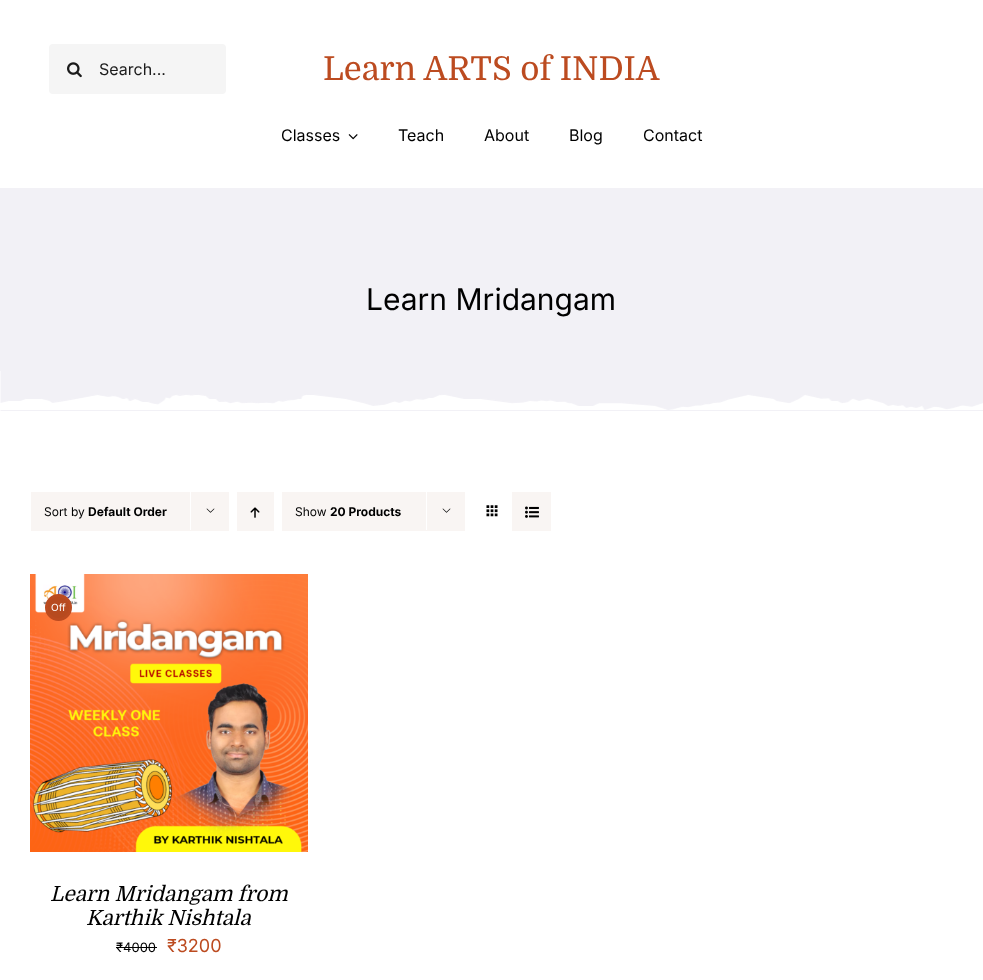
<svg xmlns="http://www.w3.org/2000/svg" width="983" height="980">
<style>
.a{font:16px Inter;fill:#1b1b1b}
.b{font:33px Domine;fill:#bc4b20}
.c{font:16px Inter;fill:#000}
.d{font:30px Inter;fill:#000}
.e{font:12px Inter;fill:#000}
.f{font:bold 12px Inter;fill:#000}
.g{font:10px Inter;fill:#fff}
.h{font:italic 21px Domine;fill:#000}
.i{font:13px Inter;fill:#000}
.j{font:18px Inter;fill:#bc4b20}
</style>
<rect width="100%" height="100%" fill="#fff"/>
<rect fill="#f5f5f5" x="49" y="44" width="177" height="50" rx="4"/>
<image href="1.png" x="67" y="62" width="15" height="16"/>
<image href="2.png" x="348" y="134" width="10" height="6"/>
<path fill="#f2f1f6" d="M0 188h983v183H0z"/>
<image href="3.png" x="0" y="371" width="983" height="40"/>
<path fill="#f9f5f3" d="M31 492h198v39H31z"/>
<path fill="#fff" d="M190 491h1v39H190z"/>
<image href="4.png" x="206" y="508" width="9" height="5"/>
<path fill="#f9f5f3" d="M237 492h37v39H237z"/>
<image href="5.png" x="250" y="507" width="10" height="11"/>
<path fill="#f9f5f3" d="M282 492h183v39H282z"/>
<path fill="#fff" d="M426 491h1v39H426z"/>
<image href="4.png" x="442" y="508" width="9" height="5"/>
<image href="6.png" x="486" y="505" width="12" height="12"/>
<path fill="#f9f5f3" d="M512 492h39v39H512z"/>
<image href="7.png" x="525" y="506" width="14" height="12"/>
<image href="8.png" x="30" y="574" width="278" height="278"/>
<circle fill="#b74a1f" stroke="#bc4b20" stroke-width="3" cx="58.5" cy="607.5" r="12"/>
<path fill="#000" d="M116 947h41v1H116z"/>
<text class="a" x="99" y="75">Search...</text>
<text class="b" x="323" y="80">Learn ARTS of INDIA</text>
<text class="c" x="281" y="141">Classes</text>
<text class="c" x="398" y="141">Teach</text>
<text class="c" x="484" y="141">About</text>
<text class="c" x="569" y="141">Blog</text>
<text class="c" x="643" y="141">Contact</text>
<text class="d" x="366" y="310">Learn Mridangam</text>
<text class="e" x="44" y="516">Sort by</text>
<text class="f" x="88" y="516">Default Order</text>
<text class="e" x="295" y="516">Show</text>
<text class="f" x="330" y="516">20 Products</text>
<text class="g" x="51" y="611">Off</text>
<text class="h" x="50" y="901">Learn Mridangam from</text>
<text class="h" x="86" y="925">Karthik Nishtala</text>
<text class="i" x="116" y="952">₹4000</text>
<text class="j" x="167" y="952">₹3200</text>
</svg>
